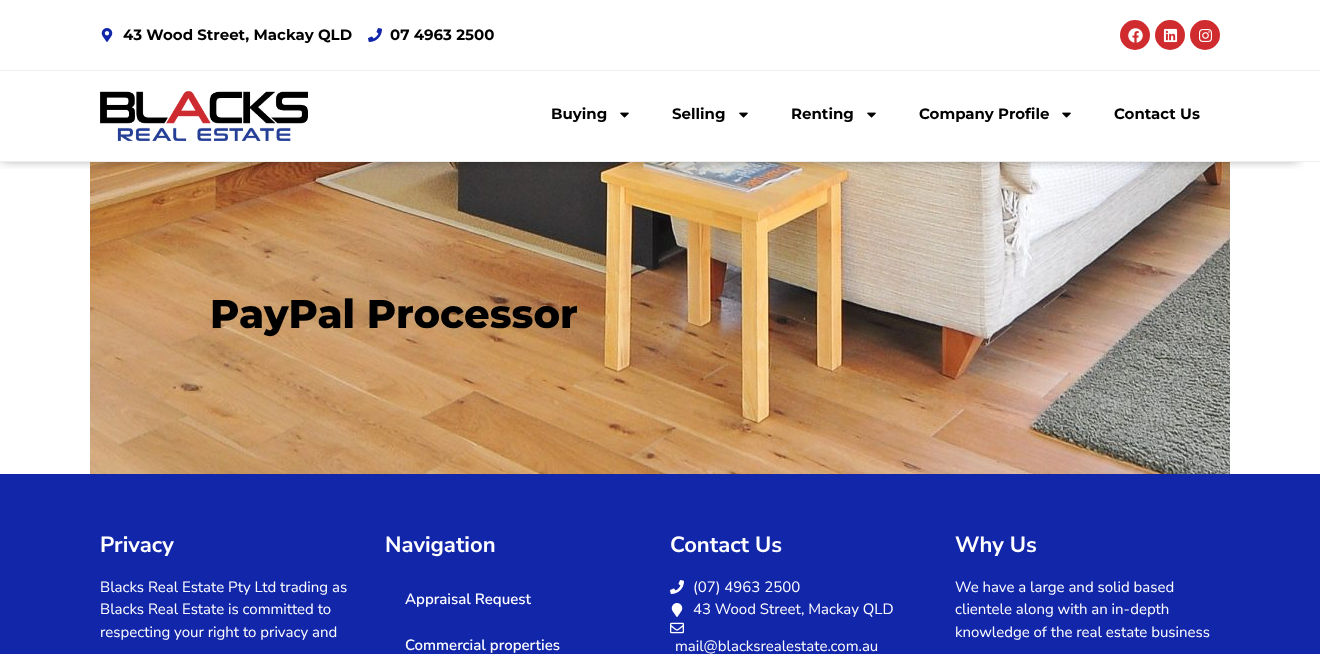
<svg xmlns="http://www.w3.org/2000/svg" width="1320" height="654">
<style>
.a{font:bold 15px Montserrat;fill:#000}
.b{font:800 40px Montserrat;fill:#000}
.c{font:bold 22px Nunito Sans;fill:#fff}
.d{font:15px Nunito Sans;fill:#fff}
.e{font:600 15px Nunito Sans;fill:#fff}
</style>
<defs>
<clipPath id="clip1"><path d="M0 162h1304v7H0z"/></clipPath>
</defs>
<rect width="100%" height="100%" fill="#fff"/>
<path fill="#eee" d="M0 70h1320v1H0z"/>
<image href="1.png" x="101" y="28" width="12" height="14"/>
<image href="2.png" x="368" y="28" width="14" height="14"/>
<circle fill="#d02c2f" cx="1135" cy="35" r="15"/>
<image href="3.png" x="1128" y="28" width="15" height="15"/>
<circle fill="#d02c2f" cx="1170" cy="35" r="15"/>
<image href="4.png" x="1163" y="28" width="15" height="15"/>
<circle fill="#d02c2f" cx="1205" cy="35" r="15"/>
<image href="5.png" x="1199" y="29" width="14" height="13"/>
<image href="8.png" x="90" y="162" width="1140" height="312"/>
<g clip-path="url(#clip1)">
<path fill="#00000080" filter="blur(6px)" d="M2 92h1296v67H2z"/>
</g>
<path fill="#eee" d="M0 161h1320v1H0z"/>
<image href="6.png" x="100" y="91" width="208" height="50"/>
<image href="7.png" x="620" y="112" width="9" height="6"/>
<image href="7.png" x="739" y="112" width="9" height="6"/>
<image href="7.png" x="867" y="112" width="9" height="6"/>
<image href="7.png" x="1062" y="112" width="9" height="6"/>
<path fill="#1226aa" d="M0 474h1320v180H0z"/>
<image href="9.png" x="670" y="580" width="14" height="14"/>
<image href="10.png" x="671" y="603" width="12" height="14"/>
<image href="11.png" x="670" y="622" width="14" height="12"/>
<text class="a" x="123" y="40">43 Wood Street, Mackay QLD</text>
<text class="a" x="390" y="40">07 4963 2500</text>
<text class="a" x="551" y="119">Buying</text>
<text class="a" x="672" y="119">Selling</text>
<text class="a" x="791" y="119">Renting</text>
<text class="a" x="919" y="119">Company Profile</text>
<text class="a" x="1114" y="119">Contact Us</text>
<text class="b" x="210" y="328">PayPal Processor</text>
<text class="c" x="100" y="552">Privacy</text>
<text class="d" x="100" y="592">Blacks Real Estate Pty Ltd trading as</text>
<text class="d" x="100" y="614">Blacks Real Estate is committed to</text>
<text class="d" x="100" y="637">respecting your right to privacy and</text>
<text class="c" x="385" y="552">Navigation</text>
<text class="e" x="405" y="604">Appraisal Request</text>
<text class="e" x="405" y="650">Commercial properties</text>
<text class="c" x="670" y="552">Contact Us</text>
<text class="d" x="693" y="592">(07) 4963 2500</text>
<text class="d" x="693" y="614">43 Wood Street, Mackay QLD</text>
<text class="d" x="675" y="651">mail@blacksrealestate.com.au</text>
<text class="c" x="955" y="552">Why Us</text>
<text class="d" x="955" y="592">We have a large and solid based</text>
<text class="d" x="955" y="614">clientele along with an in-depth</text>
<text class="d" x="955" y="637">knowledge of the real estate business</text>
</svg>
